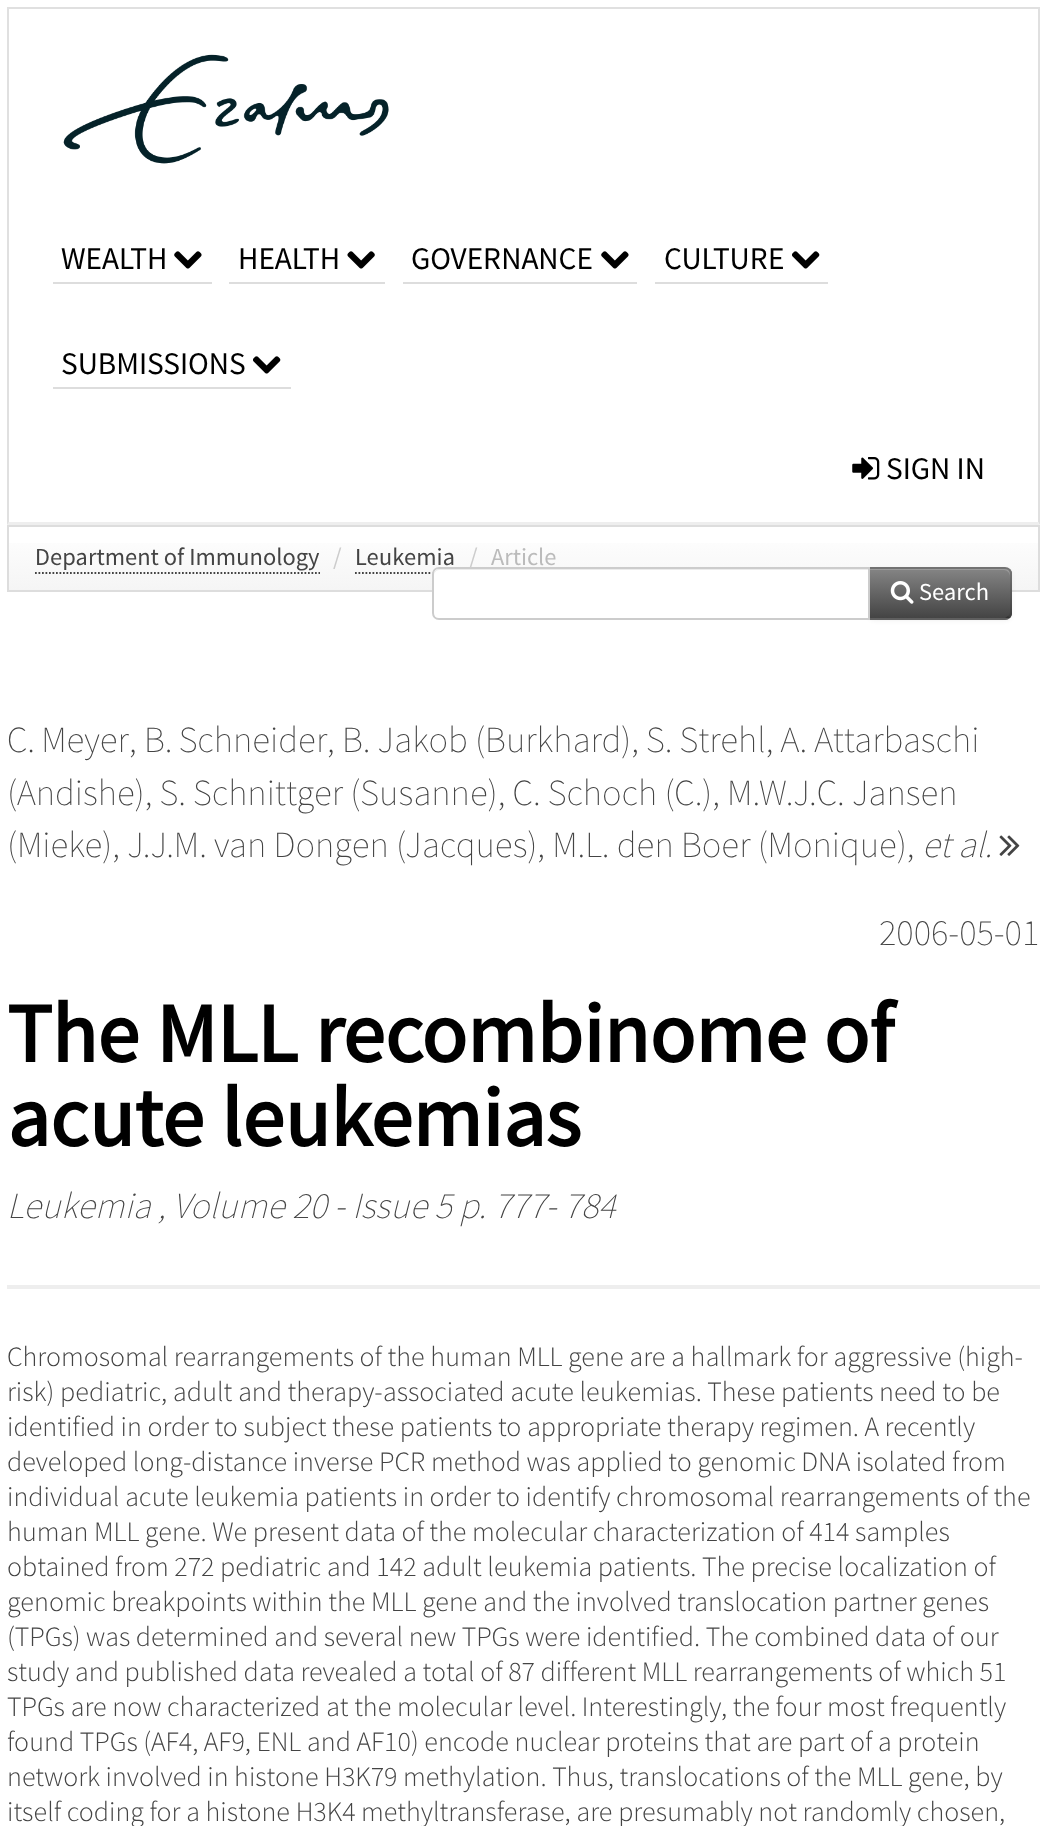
<svg xmlns="http://www.w3.org/2000/svg" width="1046" height="1826">
<style>
.a{font:31.5px Source Sans Pro;fill:#000}
.b{font:24.5px Source Sans Pro;fill:#444}
.c{font:24.5px Source Sans Pro;fill:#ccc}
.d{font:24.5px Source Sans Pro;fill:#bbb}
.e{font:24.5px Source Sans Pro;fill:#fff}
.f{font:200 36.75px Source Sans Pro;fill:#444}
.g{font:italic 200 36.75px Source Sans Pro;fill:#444}
.h{font:bold 84px Source Sans Pro;fill:#000}
.i{font:300 28px Source Sans Pro;fill:#444}
</style>
<defs>
<linearGradient id="g1" gradientUnits="userSpaceOnUse" x1="523" y1="527" x2="523" y2="590"><stop offset="0" stop-color="#fff"/><stop offset="1" stop-color="#f5f5f5"/></linearGradient>
<clipPath id="clip1"><path d="M868 567h137c4 0 7 3 7 7v39c0 4-3 7-7 7h-137z"/></clipPath>
<linearGradient id="g2" gradientUnits="userSpaceOnUse" x1="940" y1="569" x2="940" y2="618"><stop offset="0" stop-color="#848484"/><stop offset="1" stop-color="#444"/></linearGradient>
</defs>
<rect width="100%" height="100%" fill="#fff"/>
<path fill="#e0e0e0" d="M7 7h1033v2H7z"/>
<path fill="#e0e0e0" d="M1040 7v518l-2-3v-513z"/>
<path fill="#eee" d="M1040 525h-1033l2-3h1029z"/>
<path fill="#e0e0e0" d="M7 525v-518l2 2v513z"/>
<image href="1.png" x="63" y="54" width="326" height="110"/>
<path fill="#ddd" d="M53 282h159v2H53z"/>
<image href="2.png" x="174" y="251" width="28" height="18"/>
<path fill="#ddd" d="M229 282h156v2H229z"/>
<image href="3.png" x="347" y="251" width="28" height="18"/>
<path fill="#ddd" d="M403 282h234v2H403z"/>
<image href="2.png" x="601" y="251" width="28" height="18"/>
<path fill="#ddd" d="M655 282h173v2H655z"/>
<image href="4.png" x="792" y="251" width="28" height="18"/>
<path fill="#ddd" d="M53 387h238v2H53z"/>
<image href="5.png" x="253" y="356" width="28" height="18"/>
<image href="6.png" x="852" y="457" width="28" height="23"/>
<path fill="url(#g1)" d="M9 543h1029v47H9z"/>
<path fill="none" stroke="#ddd" stroke-width="2" d="M8 526h1031v65H8z"/>
<path fill="none" stroke="#444" stroke-width="1.8" stroke-dasharray="1.75 1.75" d="M35 573h285"/>
<path fill="none" stroke="#444" stroke-width="1.8" stroke-dasharray="1.75 1.75" d="M355 573h100"/>
<rect fill="#0000000d" filter="blur(2px)" x="868" y="569" width="144" height="52" rx="7"/>
<path fill="#7f7f7f" d="M868 567h137c4 0 7 3 7 7v39c0 4-3 7-7 7h-137z"/>
<g clip-path="url(#clip1)">
<path fill="url(#g2)" d="M870 569h142v49H870z"/>
</g>
<path fill="#ffffff33" d="M870 570h134c3 0 6 3 6 6v-2c0-3-2-5-5-5h-135z"/>
<path fill="#0000001a" d="M868 567l2 2h134c2 0 3 1 4 1l2-1c-2-1-4-2-6-2z"/>
<path fill="#0000001a" d="M1012 615l-2 3l-2-2c1-1 2-2 2-4v-38c0-2-1-3-2-4l2-1l2 3z"/>
<path fill="#00000040" d="M1007 620h-139l2-2h135l3-2l2 2z"/>
<image href="7.png" x="890" y="581" width="24" height="23"/>
<path fill="#eee" d="M7 1285h1033v4H7z"/>
<image href="8.png" x="999" y="835" width="21" height="21"/>
<text class="a" x="61" y="269">WEALTH</text>
<text class="a" x="238" y="269">HEALTH</text>
<text class="a" x="411" y="269">GOVERNANCE</text>
<text class="a" x="664" y="269">CULTURE</text>
<text class="a" x="61" y="374">SUBMISSIONS</text>
<text class="a" x="886" y="479">SIGN IN</text>
<text class="b" x="35" y="565">Department of Immunology</text>
<text class="c" x="333" y="565">/</text>
<text class="b" x="355" y="565">Leukemia</text>
<text class="c" x="469" y="565">/</text>
<text class="d" x="491" y="565">Article</text>
<path fill="#fff" d="M439 567h431v53h-431c-4 0-7-3-7-7v-39c0-4 3-7 7-7z"/>
<path fill="#ececec" d="M439 570h429v-1h-429c-4 0-5 4-5 7c0-3 2-6 5-6z"/>
<path fill="none" stroke="#ccc" stroke-width="2" d="M439 568h430v51h-430c-3.5 0-6-2.5-6-6v-39c0-3.5 2.5-6 6-6z"/>
<text class="e" x="919" y="600">Search</text>
<text class="f" x="7" y="752" word-spacing="-1">C. Meyer</text>
<text class="f" x="129" y="752">,</text>
<text class="f" x="144" y="752" word-spacing="-1">B. Schneider</text>
<text class="f" x="327" y="752">, B. Jakob (Burkhard), S. Strehl, A. Attarbaschi</text>
<text class="f" x="7" y="805">(Andishe), S. Schnittger (Susanne), C. Schoch (C.), M.W.J.C. Jansen</text>
<text class="f" x="7" y="857">(Mieke), J.J.M. van Dongen (Jacques), M.L. den Boer (Monique),</text>
<text class="g" x="922" y="857">et al.</text>
<text class="f" x="879" y="945">2006-05-01</text>
<text class="h" x="7" y="1062">The MLL recombinome of</text>
<text class="h" x="7" y="1146">acute leukemias</text>
<text class="g" x="7" y="1218">Leukemia , Volume 20 - Issue 5 p. 777- 784</text>
<text class="i" x="7" y="1366">Chromosomal rearrangements of the human MLL gene are a hallmark for aggressive (high-</text>
<text class="i" x="7" y="1401">risk) pediatric, adult and therapy-associated acute leukemias. These patients need to be</text>
<text class="i" x="7" y="1436">identified in order to subject these patients to appropriate therapy regimen. A recently</text>
<text class="i" x="7" y="1471">developed long-distance inverse PCR method was applied to genomic DNA isolated from</text>
<text class="i" x="7" y="1506">individual acute leukemia patients in order to identify chromosomal rearrangements of the</text>
<text class="i" x="7" y="1541">human MLL gene. We present data of the molecular characterization of 414 samples</text>
<text class="i" x="7" y="1576">obtained from 272 pediatric and 142 adult leukemia patients. The precise localization of</text>
<text class="i" x="7" y="1611">genomic breakpoints within the MLL gene and the involved translocation partner genes</text>
<text class="i" x="7" y="1646">(TPGs) was determined and several new TPGs were identified. The combined data of our</text>
<text class="i" x="7" y="1681">study and published data revealed a total of 87 different MLL rearrangements of which 51</text>
<text class="i" x="7" y="1716">TPGs are now characterized at the molecular level. Interestingly, the four most frequently</text>
<text class="i" x="7" y="1751">found TPGs (AF4, AF9, ENL and AF10) encode nuclear proteins that are part of a protein</text>
<text class="i" x="7" y="1786">network involved in histone H3K79 methylation. Thus, translocations of the MLL gene, by</text>
<text class="i" x="7" y="1821">itself coding for a histone H3K4 methyltransferase, are presumably not randomly chosen,</text>
</svg>
